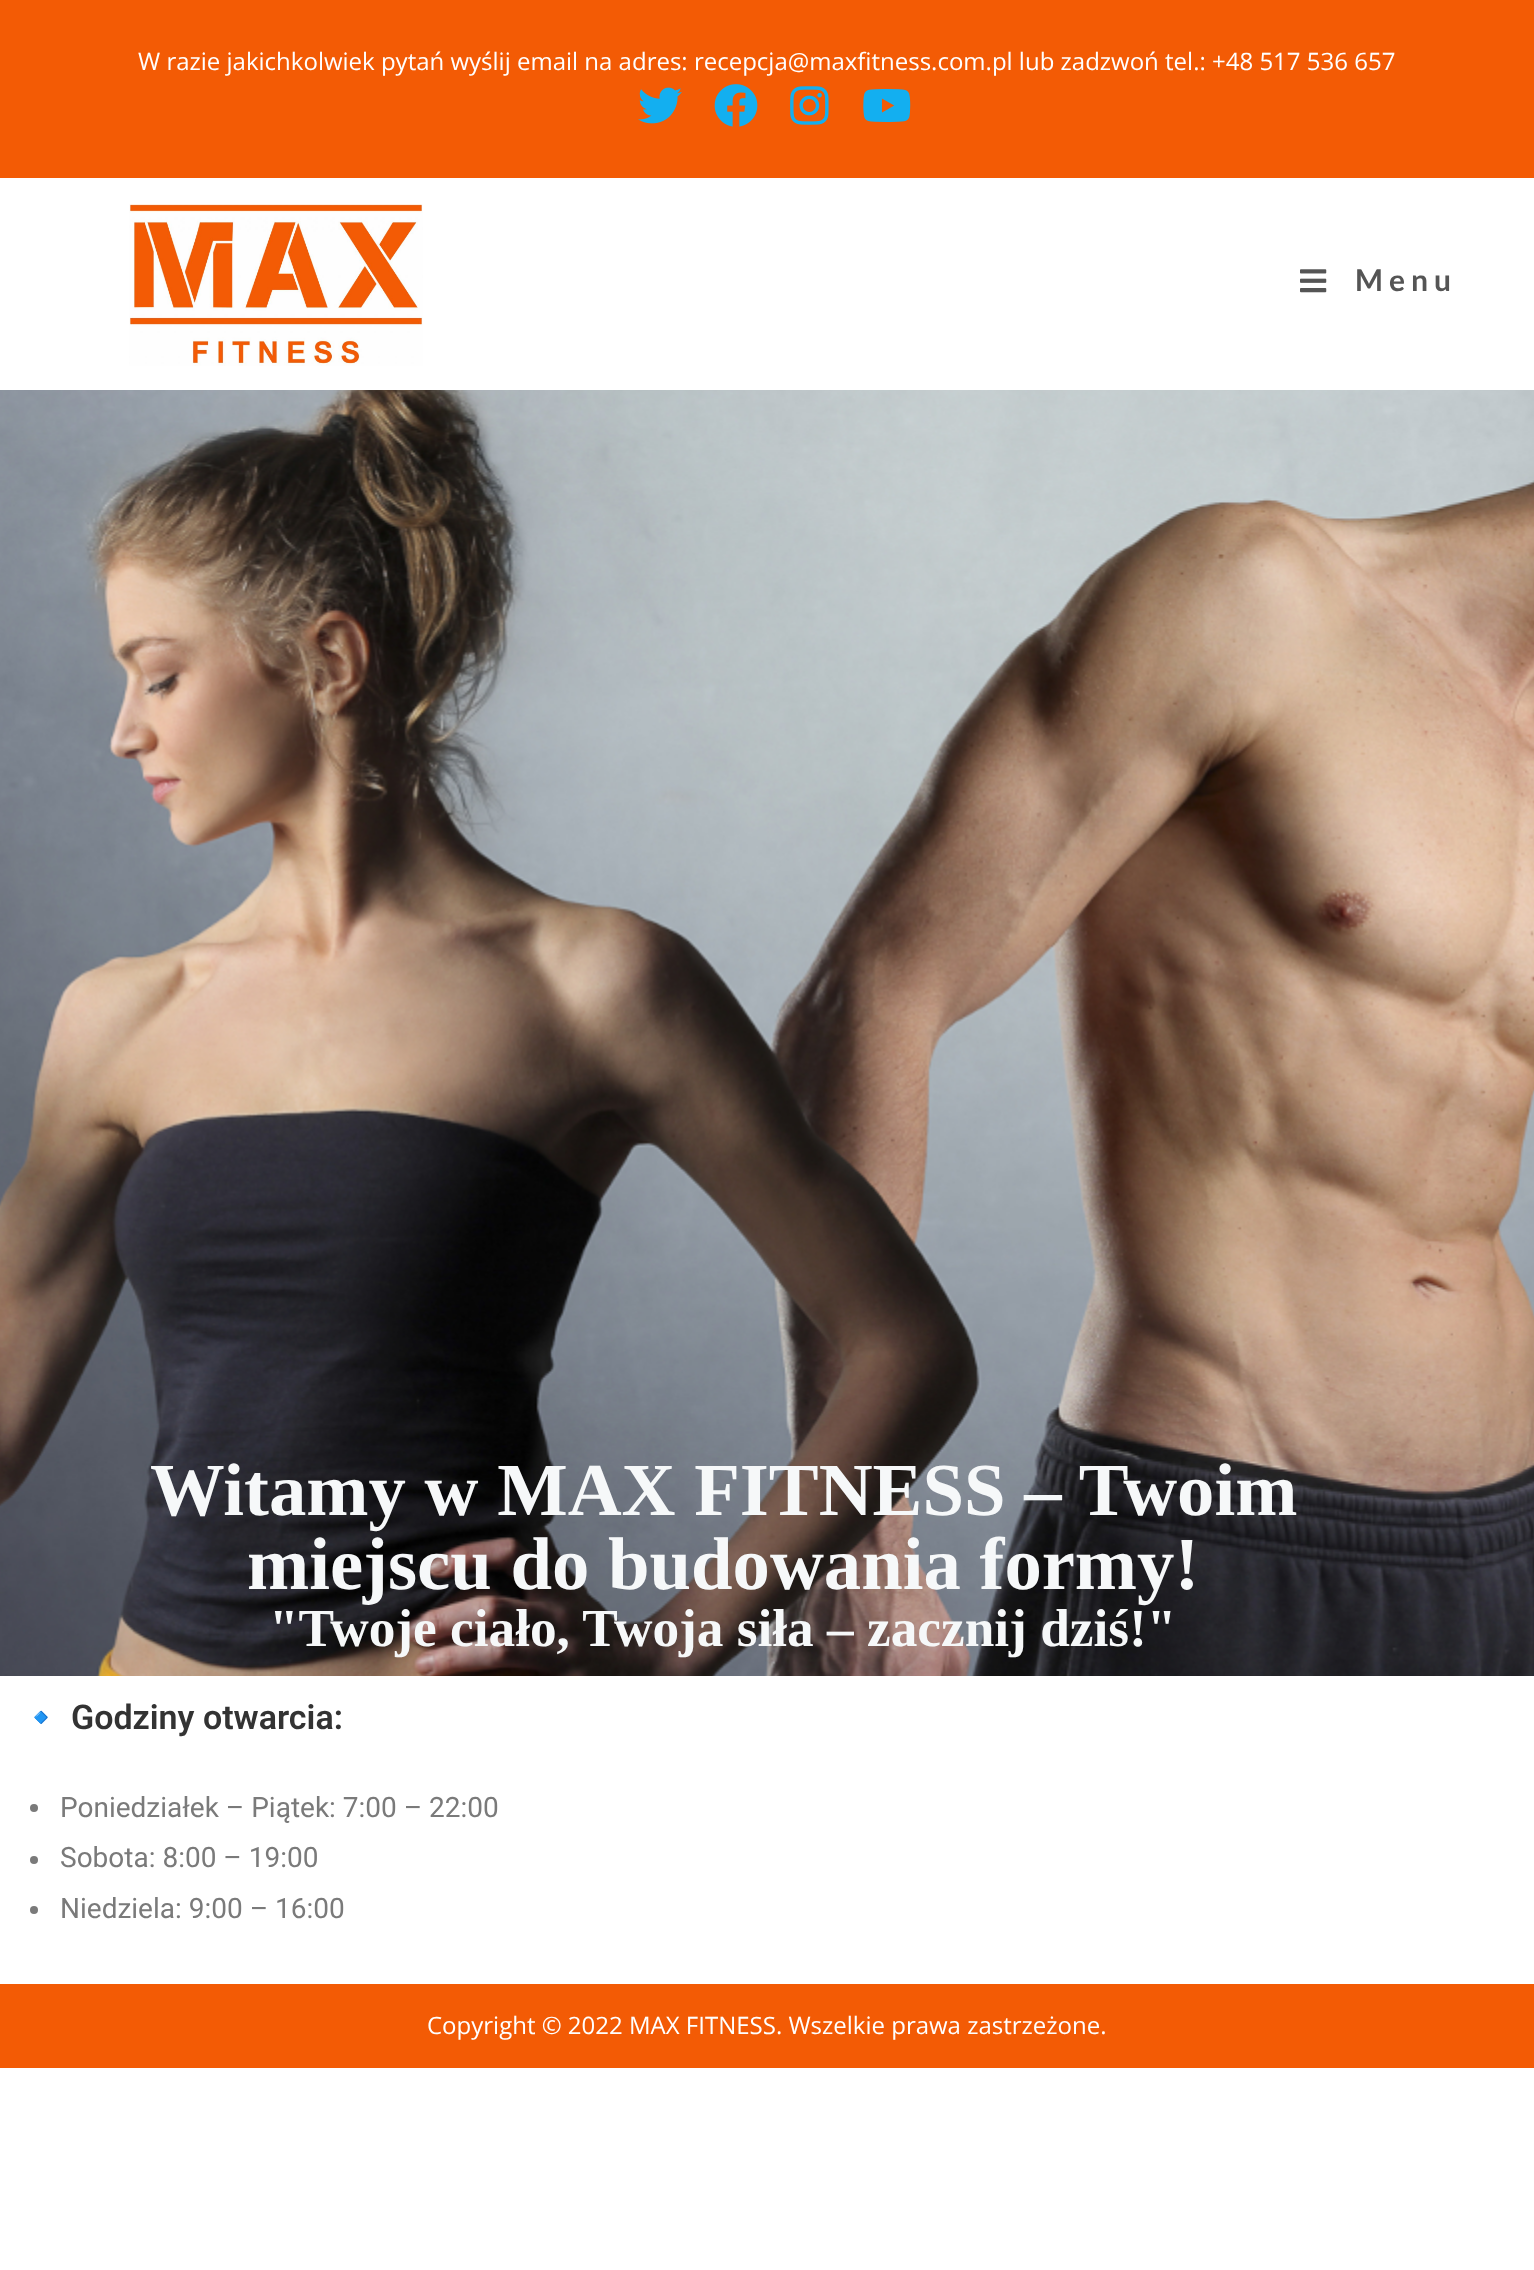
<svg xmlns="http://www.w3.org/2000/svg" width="1534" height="2270">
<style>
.a{font:24px Open Sans;fill:#fff}
.b{font:bold 30px Lato;letter-spacing:6px;fill:#555}
.c{font:bold 74.7px Liberation Serif;fill:#f6f8f9}
.d{font:bold 53.3px Liberation Serif;fill:#f6f8f9}
.e{font:bold 34px Noto Color Emoji;fill:#333}
.f{font:600 34px Roboto;fill:#333}
.g{font:28px Roboto;fill:#7a7a7a}
</style>
<rect width="100%" height="100%" fill="#fff"/>
<path fill="#f35b05" d="M0 0h1534v178H0z"/>
<image href="1.png" x="638" y="87" width="44" height="37"/>
<image href="2.png" x="714" y="84" width="44" height="43"/>
<image href="3.png" x="790" y="86" width="39" height="39"/>
<image href="4.png" x="863" y="89" width="48" height="33"/>
<image href="5.png" x="129" y="204" width="294" height="162"/>
<image href="6.png" x="1300" y="269" width="27" height="24"/>
<image href="7.png" x="0" y="390" width="1534" height="1286"/>
<circle fill="#7a7a7a" cx="34" cy="1808" r="4"/>
<circle fill="#7a7a7a" cx="34" cy="1860" r="4"/>
<circle fill="#7a7a7a" cx="34" cy="1910" r="4"/>
<path fill="#f35b05" d="M0 1984h1534v84H0z"/>
<text class="a" x="138" y="70">W razie jakichkolwiek pytań wyślij email na adres: recepcja@maxfitness.com.pl lub zadzwoń tel.: +48 517 536 657</text>
<text class="b" x="1355" y="291">Menu</text>
<text class="c" x="150" y="1515">Witamy w MAX FITNESS – Twoim</text>
<text class="c" x="247" y="1589">miejscu do budowania formy!</text>
<text class="d" x="269" y="1646">"Twoje ciało, Twoja siła – zacznij dziś!"</text>
<text class="e" x="20" y="1729">🔹</text>
<text class="f" x="71" y="1729">Godziny otwarcia:</text>
<text class="g" x="60" y="1817">Poniedziałek – Piątek: 7:00 – 22:00</text>
<text class="g" x="60" y="1867">Sobota: 8:00 – 19:00</text>
<text class="g" x="60" y="1918">Niedziela: 9:00 – 16:00</text>
<text class="a" x="427" y="2034">Copyright © 2022 MAX FITNESS. Wszelkie prawa zastrzeżone.</text>
</svg>
